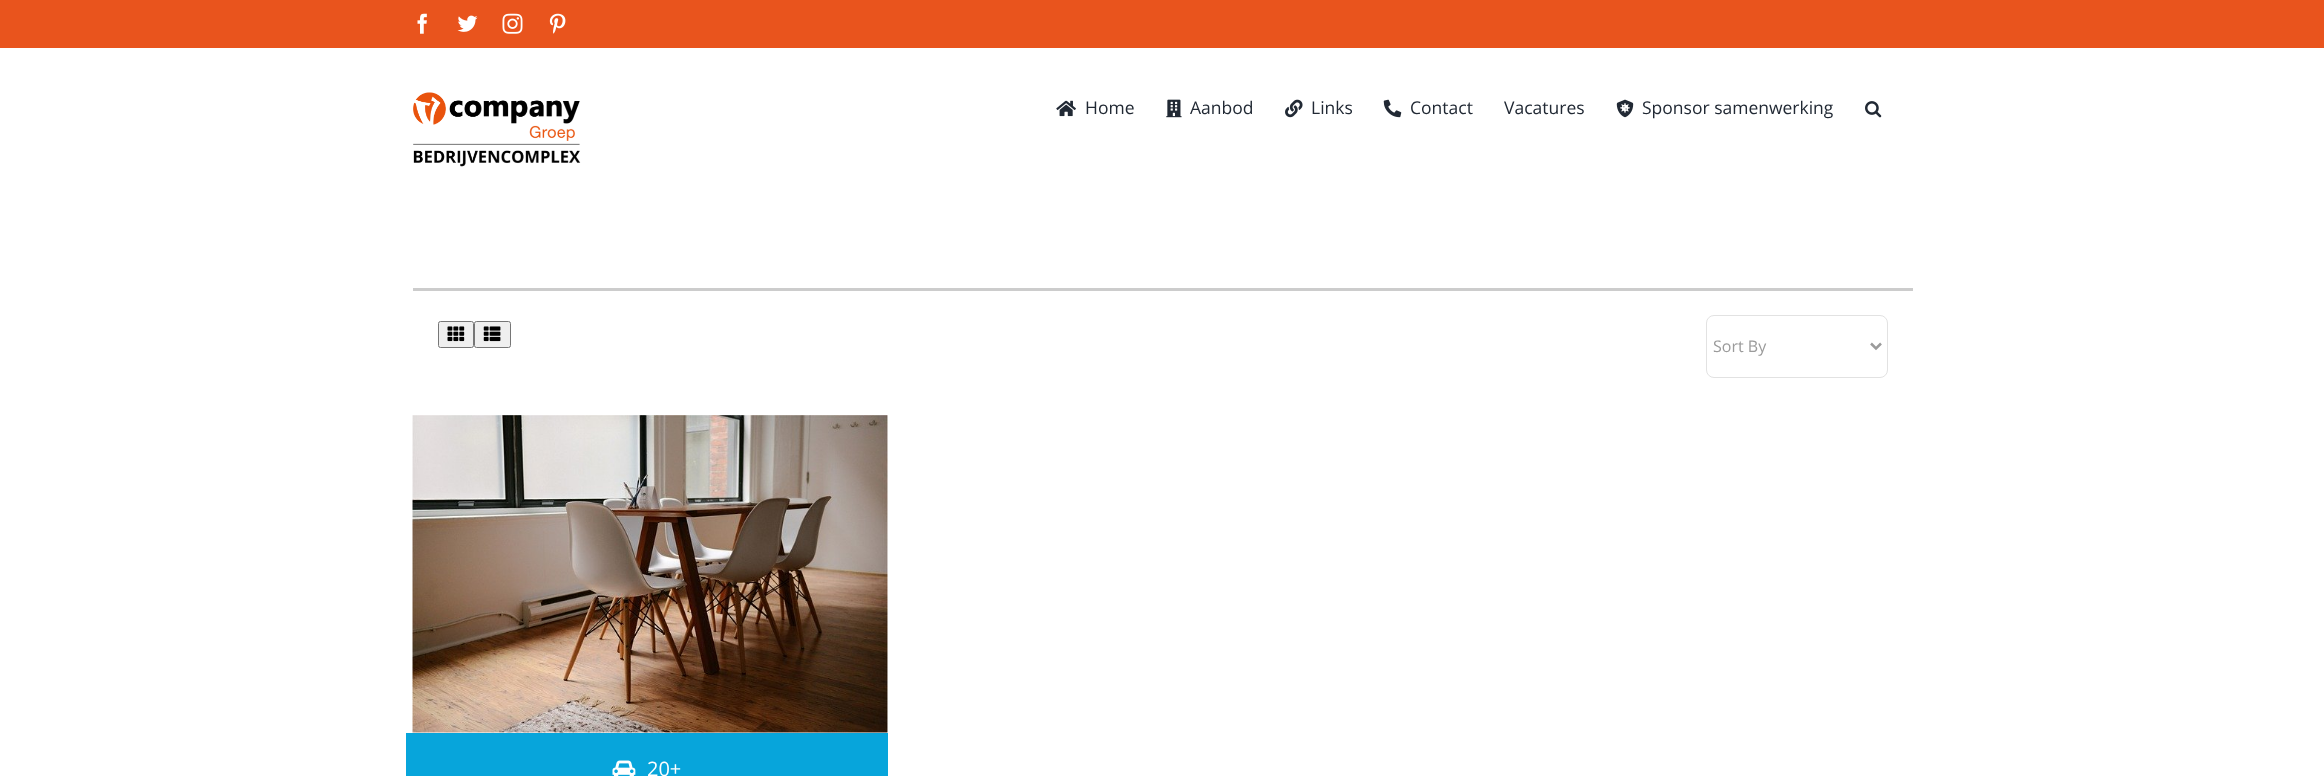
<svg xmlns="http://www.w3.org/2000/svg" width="2324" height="776">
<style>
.a{font:17.5px Open Sans;fill:#212934}
.b{font:16px Open Sans;fill:#9b9b9b}
.c{font:20px Open Sans;fill:#fff}
</style>
<rect width="100%" height="100%" fill="#fff"/>
<path fill="#e9541d" d="M0 0h2324v48H0z"/>
<image href="1.png" x="417" y="13" width="10" height="21"/>
<image href="2.png" x="457" y="15" width="21" height="17"/>
<image href="3.png" x="502" y="13" width="21" height="21"/>
<image href="4.png" x="549" y="13" width="17" height="21"/>
<image href="5.png" x="413" y="92" width="168" height="75"/>
<image href="6.png" x="1056" y="100" width="20" height="17"/>
<image href="7.png" x="1166" y="99" width="16" height="19"/>
<image href="8.png" x="1285" y="99" width="18" height="19"/>
<image href="9.png" x="1383" y="99" width="19" height="19"/>
<image href="10.png" x="1616" y="99" width="18" height="19"/>
<image href="11.png" x="1865" y="101" width="17" height="17"/>
<path fill="#ccc" d="M413 288h1500v3H413z"/>
<rect fill="#efefef" stroke="#767676" x="438.5" y="321.5" width="35" height="26" rx="2"/>
<image href="12.png" x="447" y="326" width="18" height="16"/>
<rect fill="#efefef" stroke="#767676" x="474.5" y="321.5" width="36" height="26" rx="2"/>
<image href="13.png" x="483" y="326" width="18" height="16"/>
<rect fill="none" stroke="#e2e2e2" x="1706.5" y="315.5" width="181" height="62" rx="7.5"/>
<path fill="none" stroke="#9b9b9b" stroke-width="2.5" d="M1871 343.5l5 5l5-5"/>
<image href="14.png" x="412" y="415" width="476" height="318"/>
<path fill="#07a5db" d="M406 733h482v43H406z"/>
<image href="15.png" x="612" y="760" width="24" height="16"/>
<text class="a" x="1085" y="114">Home</text>
<text class="a" x="1190" y="114">Aanbod</text>
<text class="a" x="1311" y="114">Links</text>
<text class="a" x="1410" y="114">Contact</text>
<text class="a" x="1504" y="114">Vacatures</text>
<text class="a" x="1642" y="114">Sponsor samenwerking</text>
<text class="b" x="1713" y="352">Sort By</text>
<text class="c" x="647" y="776">20+</text>
</svg>
